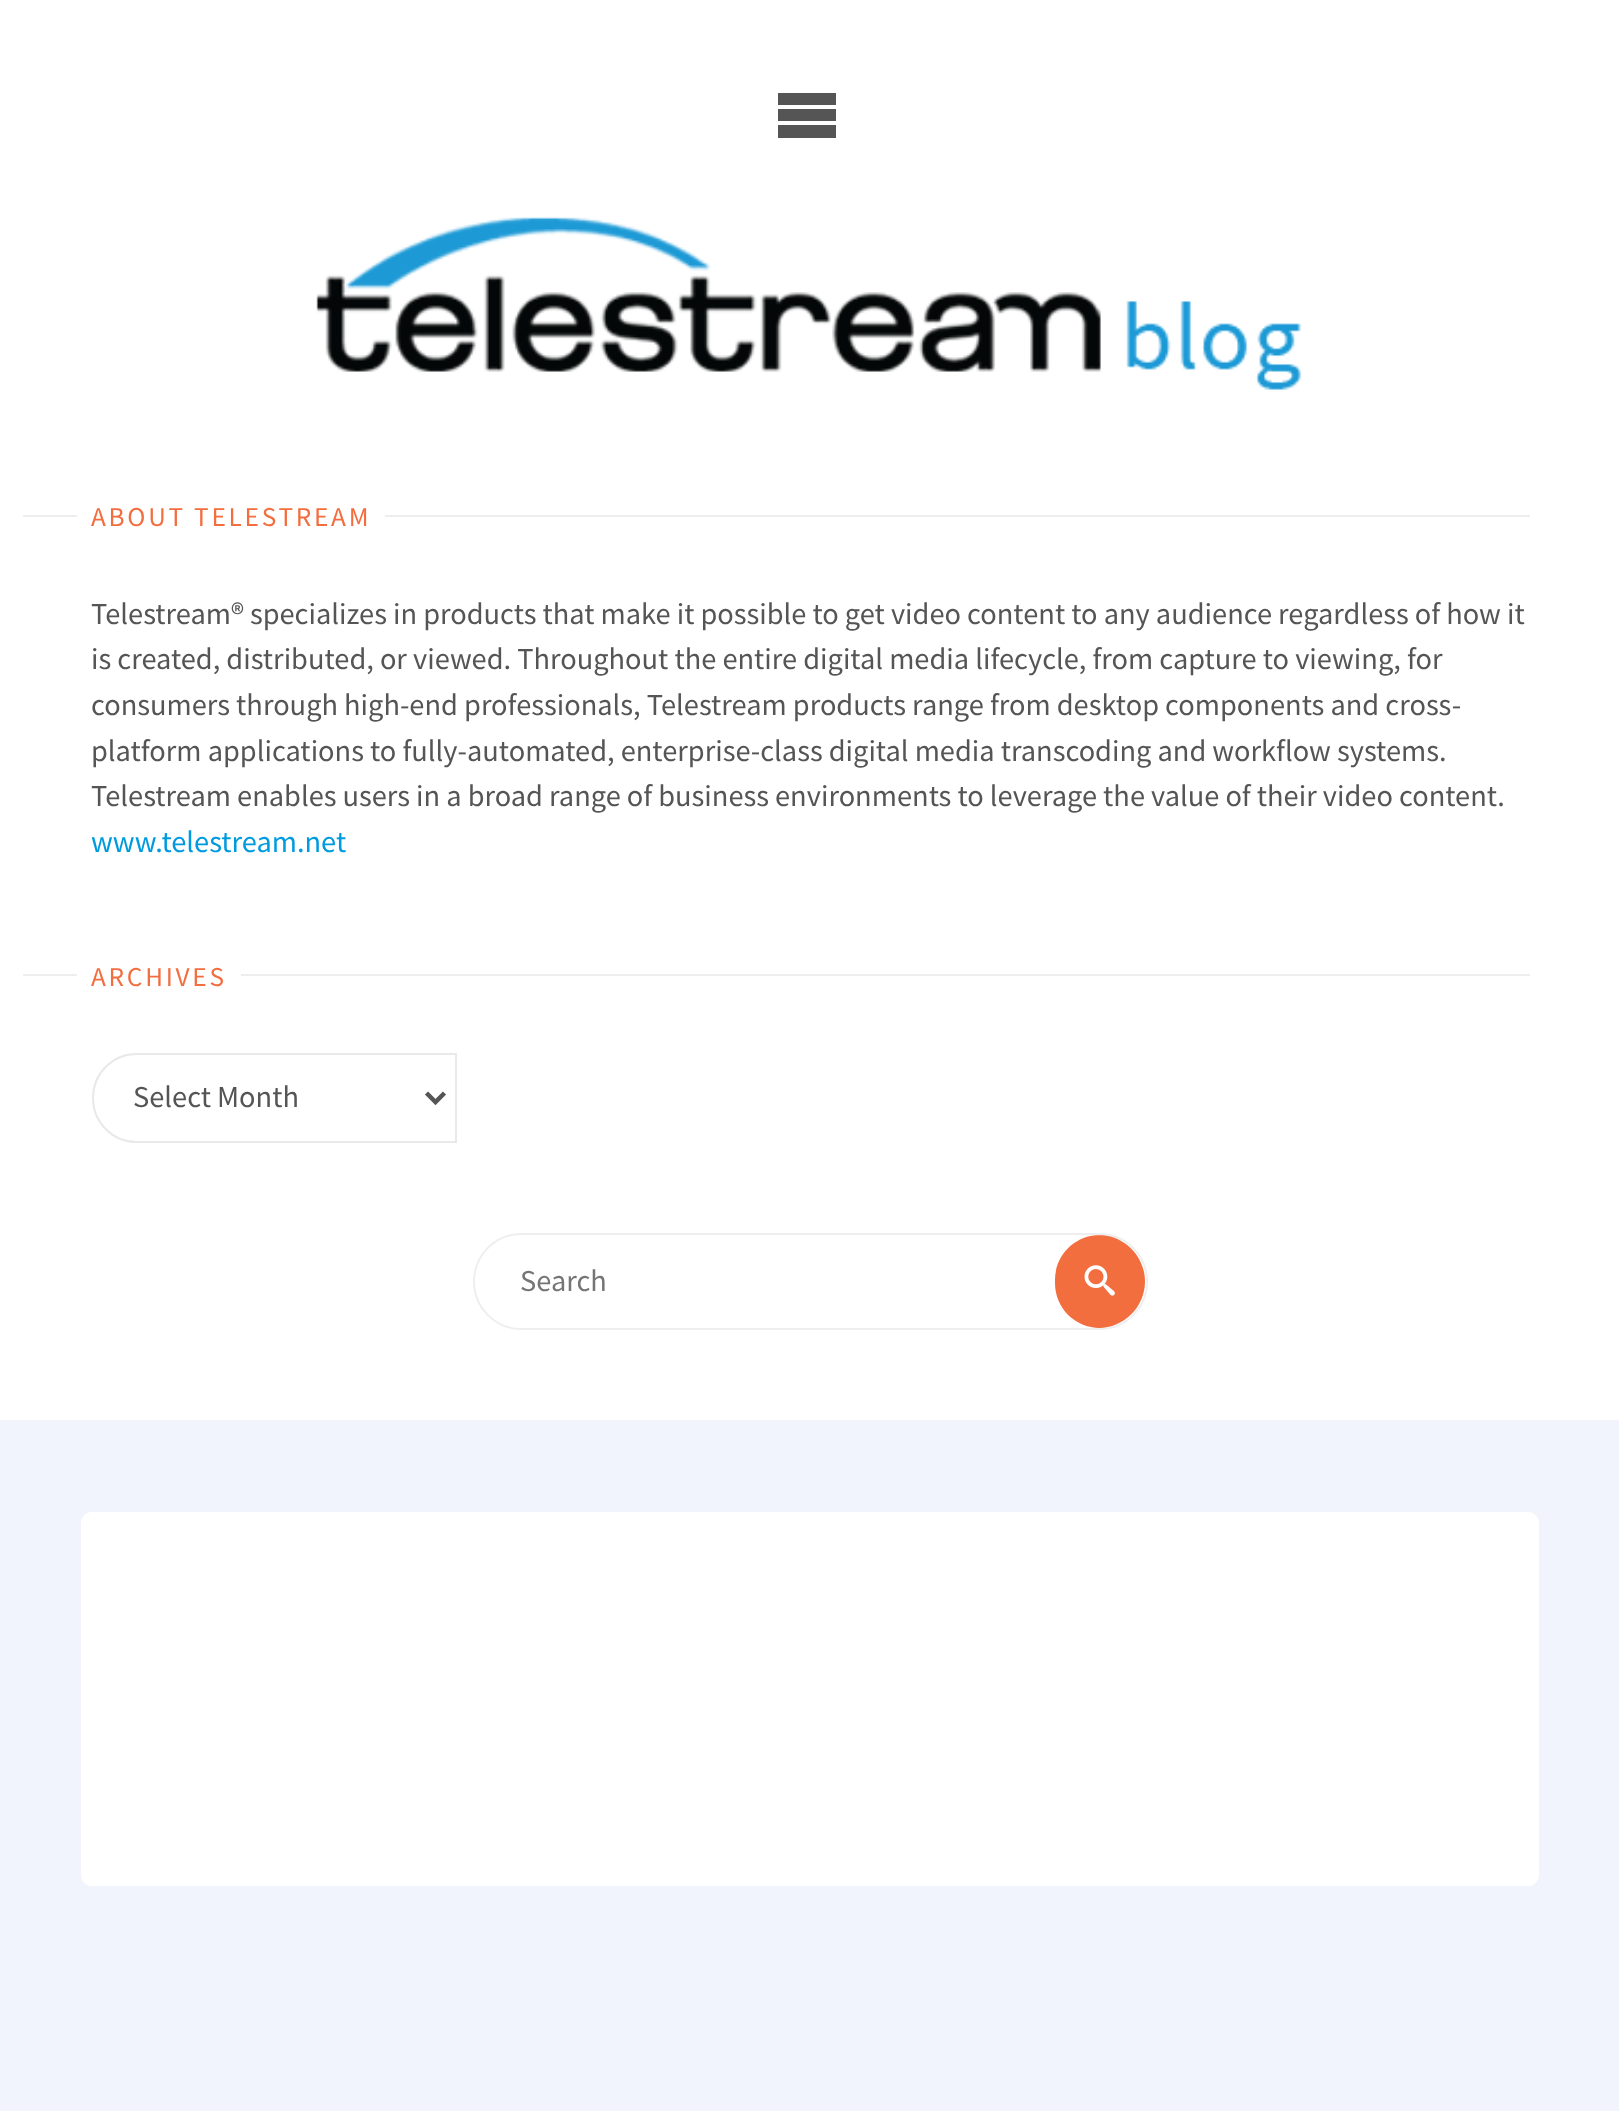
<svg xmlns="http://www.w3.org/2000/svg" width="1619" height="2111">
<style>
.a{font:27.25px Source Sans Pro;letter-spacing:2.75px;fill:#f26e3f}
.b{font:30.4px Source Sans Pro;fill:#555}
.c{font:30.4px Source Sans Pro;fill:#009bdf}
.d{font:30.4px Source Sans Pro;fill:#757575}
</style>
<rect width="100%" height="100%" fill="#f2f4fd"/>
<path fill="#fff" d="M0 0h1619v1420H0z"/>
<path fill="#555" d="M778 93h58v12h-58zm0 16h58v12h-58zm0 16h58v13h-58z"/>
<image href="1.png" x="316" y="217" width="986" height="173"/>
<path fill="#eee" d="M23 515h1507v2H23z"/>
<path fill="#fff" d="M77 515h308v2H77z"/>
<path fill="#eee" d="M23 974h1507v2H23z"/>
<path fill="#fff" d="M77 974h164v2H77z"/>
<path fill="none" stroke="#e9e9e9" stroke-width="2" d="M137 1054h319v88h-319c-24.5 0-44-19.5-44-44c0-24.5 19.5-44 44-44z"/>
<path fill="none" stroke="#555" stroke-width="4.5" d="M426.5 1093l9 9l9-9"/>
<rect fill="none" stroke="#eee" stroke-width="2" x="474" y="1234" width="673" height="95" rx="47.5"/>
<path fill="#f26e3f" d="M1100 1235h-1.5c25.5 0 46.5 21 46.5 46.5c0 25.5-21 46.5-46.5 46.5h1.5c-25 0-45-20-45-45v-3c0-25 20-45 45-45z"/>
<image href="2.png" x="1084" y="1265" width="31" height="31"/>
<rect fill="#fff" x="81" y="1512" width="1458" height="374" rx="11"/>
<text class="a" x="91" y="526">ABOUT TELESTREAM</text>
<text class="b" x="91" y="624">Telestream® specializes in products that make it possible to get video content to any audience regardless of how it</text>
<text class="b" x="91" y="669">is created, distributed, or viewed. Throughout the entire digital media lifecycle, from capture to viewing, for</text>
<text class="b" x="91" y="715">consumers through high-end professionals, Telestream products range from desktop components and cross-</text>
<text class="b" x="91" y="761">platform applications to fully-automated, enterprise-class digital media transcoding and workflow systems.</text>
<text class="b" x="91" y="806">Telestream enables users in a broad range of business environments to leverage the value of their video content.</text>
<text class="c" x="91" y="852">www.telestream.net</text>
<text class="a" x="91" y="986">ARCHIVES</text>
<text class="b" x="133" y="1107">Select Month</text>
<text class="d" x="520" y="1291">Search</text>
</svg>
